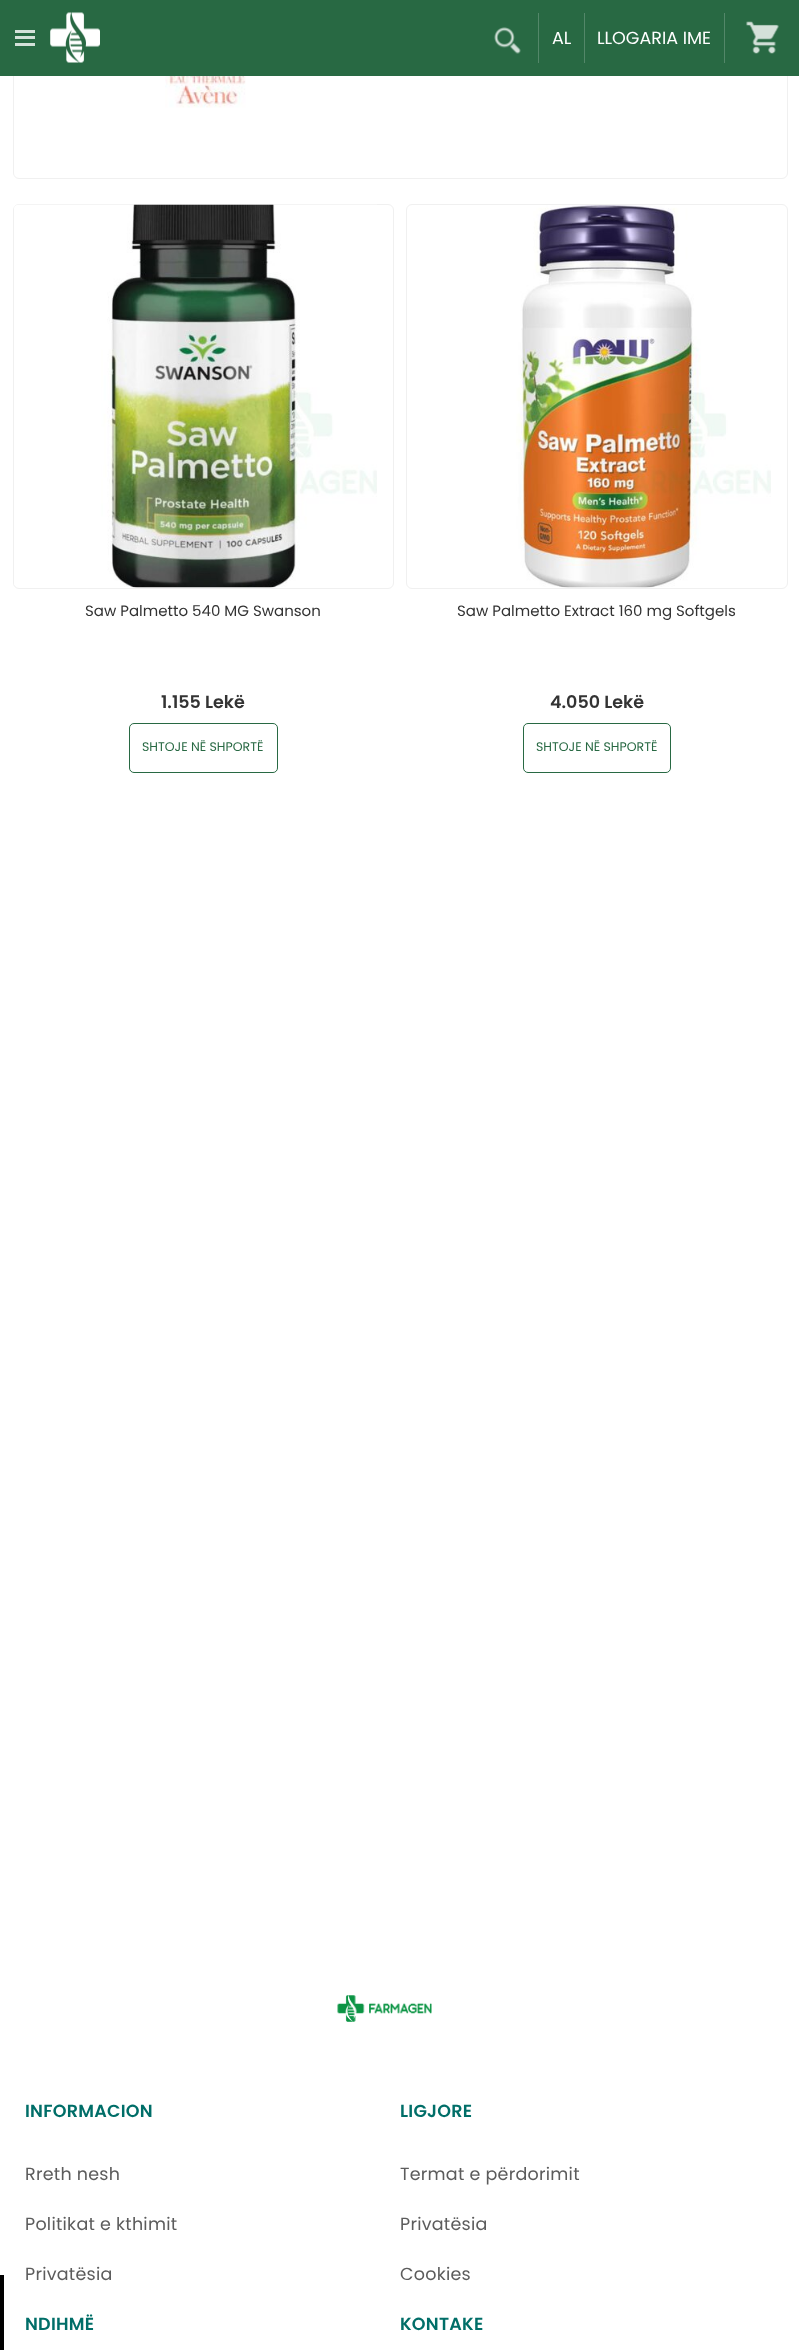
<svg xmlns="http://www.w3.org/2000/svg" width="799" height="2350">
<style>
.a{font:17.5px Poppins;fill:#fff}
.b{font:15px Poppins;fill:#333}
.c{font:600 17.5px Poppins;fill:#333}
.d{font:12.5px Poppins;fill:#286943}
.e{font:600 17.5px Poppins;letter-spacing:0.25px;fill:#006e68}
.f{font:17.5px Poppins;letter-spacing:0.25px;fill:#5c5c5c}
</style>
<rect width="100%" height="100%" fill="#fff"/>
<rect fill="none" stroke="#f0f0f0" x="13.5" y="-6.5" width="774" height="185" rx="5.5"/>
<path fill="#286943" d="M0 0h799v76H0z"/>
<path fill="#d4e1d9" d="M15 30h20v3H15z"/>
<path fill="#d4e1d9" d="M15 36h20v3H15z"/>
<path fill="#d4e1d9" d="M15 43h20v3H15z"/>
<image href="1.png" x="50" y="12" width="50" height="51"/>
<path fill="#538769" d="M538 13h1v50H538z"/>
<image href="2.png" x="494" y="27" width="27" height="27"/>
<path fill="#538769" d="M584 13h1v50H584z"/>
<path fill="#538769" d="M724 13h1v50H724z"/>
<image href="3.png" x="746" y="21" width="33" height="33"/>
<image href="4.png" x="165" y="76" width="81" height="32"/>
<rect fill="none" stroke="#f0f0f0" x="13.5" y="204.5" width="380" height="384" rx="5.5"/>
<image href="5.png" x="14" y="204" width="363" height="384"/>
<rect fill="none" stroke="#286943" x="129.5" y="723.5" width="148" height="49" rx="4.5"/>
<rect fill="none" stroke="#f0f0f0" x="406.5" y="204.5" width="381" height="384" rx="5.5"/>
<image href="6.png" x="516" y="205" width="255" height="383"/>
<rect fill="none" stroke="#286943" x="523.5" y="723.5" width="147" height="49" rx="4.5"/>
<path fill="#000" d="M0 2275h4v75H0z"/>
<image href="7.png" x="337" y="1995" width="95" height="27"/>
<text class="a" x="552" y="44">AL</text>
<text class="a" x="597" y="44">LLOGARIA IME</text>
<text class="b" x="85" y="616">Saw Palmetto 540 MG Swanson</text>
<text class="c" x="161" y="708">1.155 Lekë</text>
<text class="d" x="142" y="751">SHTOJE NË SHPORTË</text>
<text class="b" x="457" y="616">Saw Palmetto Extract 160 mg Softgels</text>
<text class="c" x="550" y="708">4.050 Lekë</text>
<text class="d" x="536" y="751">SHTOJE NË SHPORTË</text>
<text class="e" x="25" y="2117">INFORMACION</text>
<text class="f" x="25" y="2180">Rreth nesh</text>
<text class="f" x="25" y="2230">Politikat e kthimit</text>
<text class="f" x="25" y="2280">Privatësia</text>
<text class="e" x="400" y="2117">LIGJORE</text>
<text class="f" x="400" y="2180">Termat e përdorimit</text>
<text class="f" x="400" y="2230">Privatësia</text>
<text class="f" x="400" y="2280">Cookies</text>
<text class="e" x="25" y="2330">NDIHMË</text>
<text class="e" x="400" y="2330">KONTAKE</text>
</svg>
